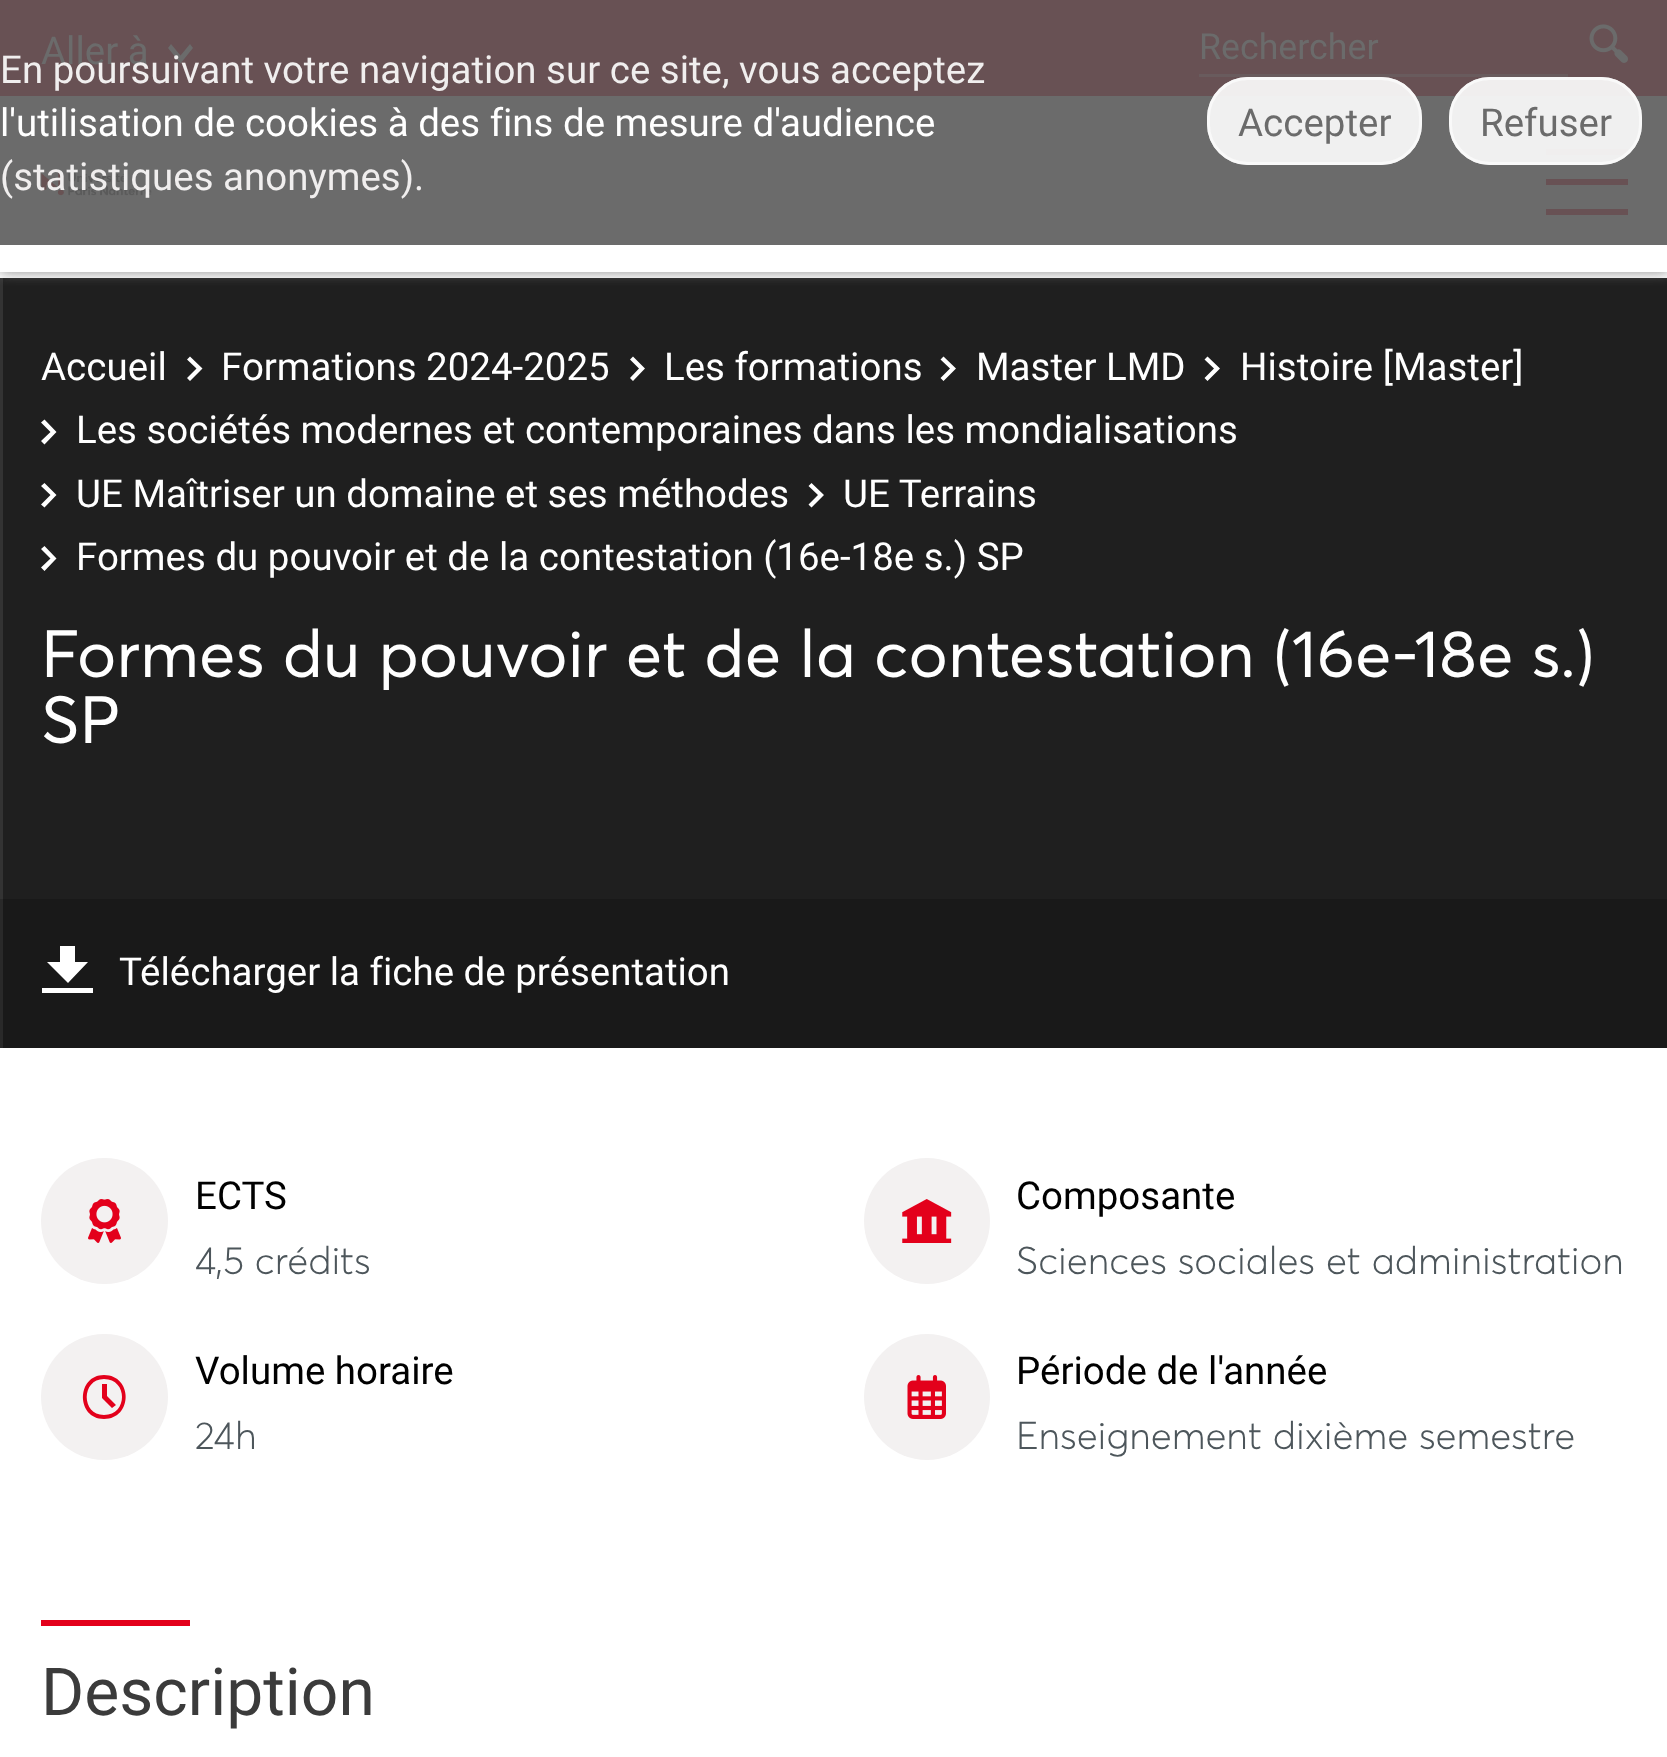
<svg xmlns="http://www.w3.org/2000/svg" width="1667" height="1757">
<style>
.a{font:38.5px Roboto;fill:#6b6b6b}
.b{font:35.75px Roboto;fill:#6b6b6b}
.c{font:38.5px Roboto;fill:#f0eeee}
.d{font:38.5px Roboto;fill:#fff}
.e{font:66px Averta;fill:#fff}
.f{font:38.5px Roboto;fill:#000}
.g{font:300 38.5px Averta;fill:#4d565b}
.h{font:66px Roboto;fill:#3b3b3b}
</style>
<defs>
<clipPath id="clip1"><path d="M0 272h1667v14H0z"/></clipPath>
</defs>
<rect width="100%" height="100%" fill="#fff"/>
<path fill="#6b6b6b" d="M0 96h1667v149H0z"/>
<path fill="#333" d="M0 278h3v621H0z"/>
<path fill="#1f1f1f" d="M3 278h1664v621H3z"/>
<g clip-path="url(#clip1)">
<path fill="#8a8a8a" filter="blur(7px)" d="M0 0h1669v272H0z"/>
</g>
<path fill="#685154" d="M0 0h1667v96H0z"/>
<path fill="#6b6b6b" d="M180.5 63.5l12.5-15.5l-3-4l-9.5 11.5l-9.5-11.5l-3 4z"/>
<path fill="#695b5d" d="M1199 74h369v3H1199z"/>
<image href="1.png" x="1589" y="24" width="39" height="39"/>
<image href="2.png" x="41" y="173" width="111" height="23"/>
<path fill="#685154" d="M1546 149h82v6H1546z"/>
<path fill="#685154" d="M1546 179h82v6H1546z"/>
<path fill="#685154" d="M1546 209h82v6H1546z"/>
<rect fill="#ffffffe6" x="1207" y="77" width="215" height="88" rx="41"/>
<rect fill="none" stroke="#f9f9f9e6" stroke-width="3" x="1208.5" y="78.5" width="212" height="85" rx="39.5"/>
<rect fill="#ffffffe6" x="1449" y="77" width="193" height="88" rx="41"/>
<rect fill="none" stroke="#f9f9f9e6" stroke-width="3" x="1450.5" y="78.5" width="190" height="85" rx="39.5"/>
<path fill="#292929" d="M0 899h3v149H0z"/>
<path fill="#191919" d="M3 899h1664v149H3z"/>
<path fill="#fff" d="M201 370l1.5-1.5l-12.5-12l-3 3l9.5 9l-9.5 9.5l3 3z"/>
<path fill="#fff" d="M643.5 370l1.5-1.5l-12-12l-3 3l9 9l-9 9.5l3 3z"/>
<path fill="#fff" d="M954.5 370l1.5-1.5l-12.5-12l-3 3l9.5 9l-9.5 9.5l3 3z"/>
<path fill="#fff" d="M1218.5 370l1.5-1.5l-12.5-12l-3 3l9.5 9l-9.5 9.5l3 3z"/>
<path fill="#fff" d="M55 433.5l1.5-1.5l-12-12.5l-3.5 3l9.5 9.5l-9.5 9l3.5 3.5z"/>
<path fill="#fff" d="M55 496.5l1.5-1.5l-12-12l-3.5 3l9.5 9l-9.5 9.5l3.5 3z"/>
<path fill="#fff" d="M822.5 496.5l1.5-1.5l-12.5-12l-3 3l9.5 9l-9.5 9.5l3 3z"/>
<path fill="#fff" d="M55 560l1.5-1.5l-12-12.5l-3.5 3l9.5 9.5l-9.5 9l3.5 3.5z"/>
<path fill="#fff" d="M75 962v-16h-15v16h-13l21 21l20-21zm-33 26h51v5h-51z"/>
<rect fill="#f3f1f1" x="41" y="1158" width="127" height="126" rx="63"/>
<image href="3.png" x="88" y="1199" width="33" height="44"/>
<circle fill="#f3f1f1" cx="927" cy="1221" r="63"/>
<image href="4.png" x="902" y="1199" width="50" height="44"/>
<rect fill="#f3f1f1" x="41" y="1334" width="127" height="126" rx="63"/>
<path fill="#e3001b" d="M102 1394v-10h5v12l9 9l-4 3l-10-10zm2 25c-28 0-28-44 0-44c29 0 29 44 0 44zm0-4c24 0 24-36 0-36c-23 0-23 36 0 36z"/>
<circle fill="#f3f1f1" cx="927" cy="1397" r="63"/>
<image href="5.png" x="907" y="1375" width="39" height="44"/>
<path fill="#e3001b" d="M41 1620h149v6H41z"/>
<text class="a" x="41" y="64">Aller à</text>
<text class="b" x="1199" y="59">Rechercher</text>
<text class="c" x="0" y="83">En poursuivant votre navigation sur ce site, vous acceptez</text>
<text class="d" x="0" y="136">l'utilisation de cookies à des fins de mesure d'audience</text>
<text class="c" x="0" y="190">(statistiques anonymes).</text>
<text class="a" x="1238" y="136">Accepter</text>
<text class="a" x="1480" y="136">Refuser</text>
<text class="d" x="41" y="380">Accueil</text>
<text class="d" x="221" y="380">Formations 2024-2025</text>
<text class="d" x="664" y="380">Les formations</text>
<text class="d" x="976" y="380">Master LMD</text>
<text class="d" x="1240" y="380">Histoire [Master]</text>
<text class="d" x="76" y="443">Les sociétés modernes et contemporaines dans les mondialisations</text>
<text class="d" x="76" y="507">UE Maîtriser un domaine et ses méthodes</text>
<text class="d" x="843" y="507">UE Terrains</text>
<text class="d" x="76" y="570">Formes du pouvoir et de la contestation (16e-18e s.) SP</text>
<text class="e" x="41" y="677">Formes du pouvoir et de la contestation (16e-18e s.)</text>
<text class="e" x="41" y="743">SP</text>
<text class="d" x="119" y="985">Télécharger la fiche de présentation</text>
<text class="f" x="195" y="1209">ECTS</text>
<text class="g" x="195" y="1274">4,5 crédits</text>
<text class="f" x="1016" y="1209">Composante</text>
<text class="g" x="1016" y="1274">Sciences sociales et administration</text>
<text class="f" x="195" y="1384">Volume horaire</text>
<text class="g" x="195" y="1449">24h</text>
<text class="f" x="1016" y="1384">Période de l'année</text>
<text class="g" x="1016" y="1449">Enseignement dixième semestre</text>
<text class="h" x="41" y="1715">Description</text>
</svg>
